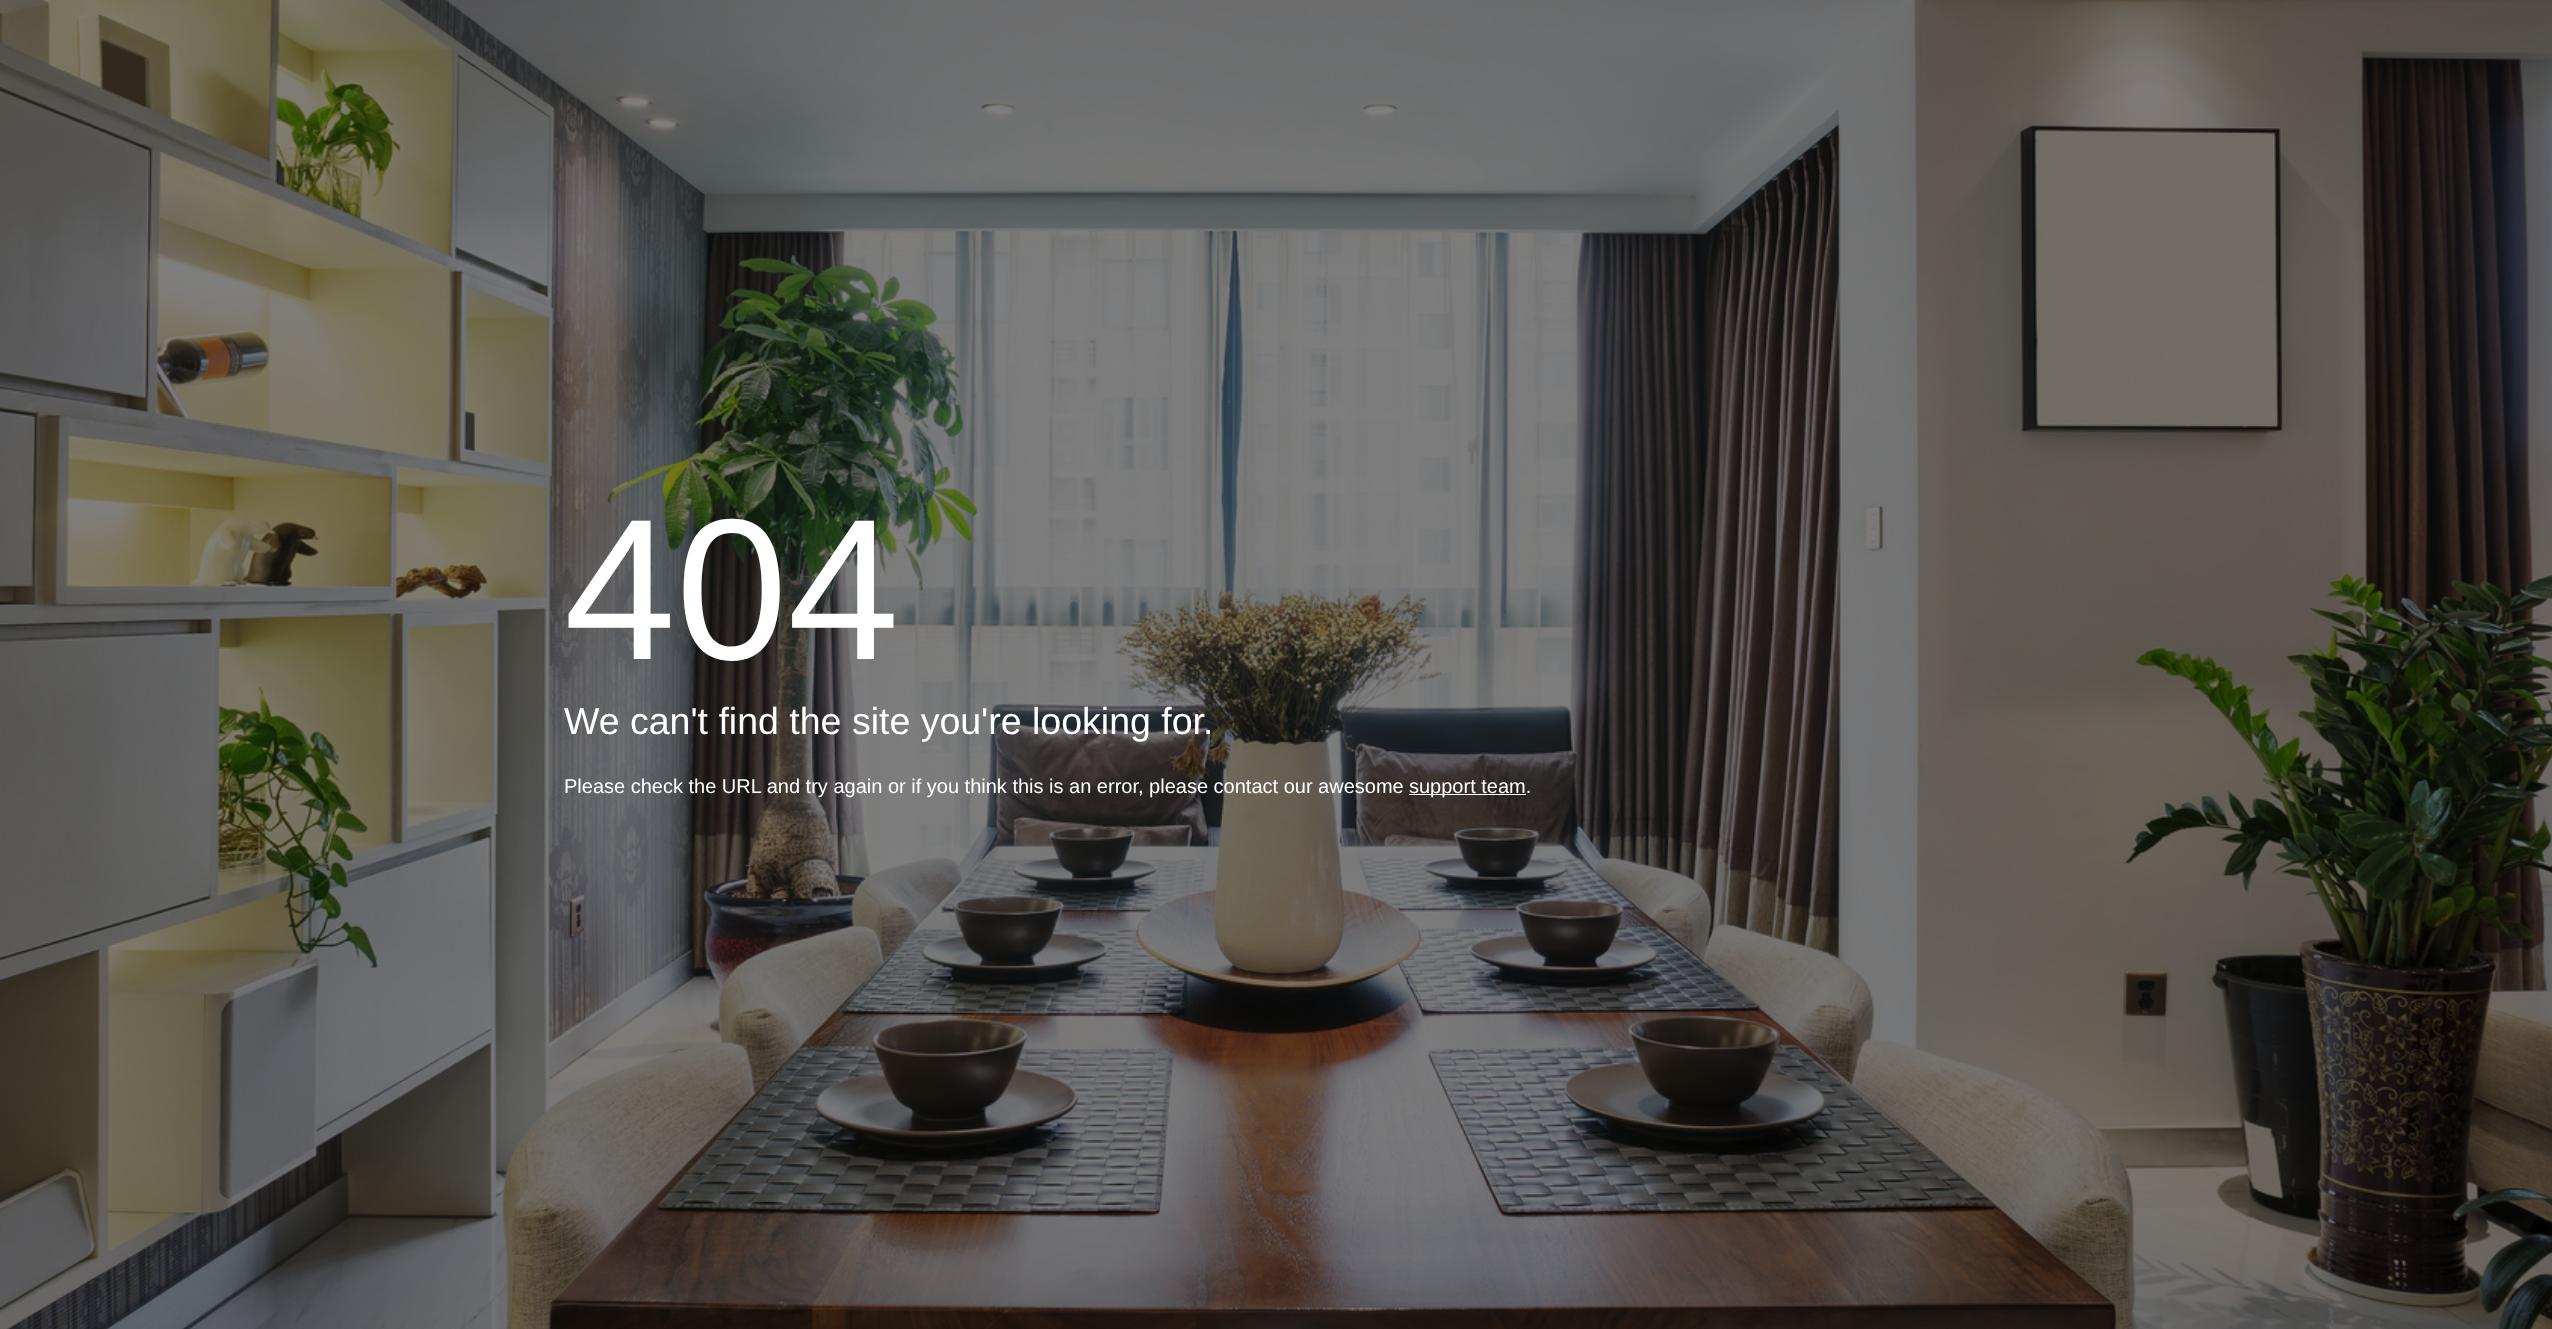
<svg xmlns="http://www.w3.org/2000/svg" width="2552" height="1329">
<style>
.a{font:201px Liberation Sans;fill:#fff}
.b{font:37.5px Liberation Sans;fill:#fff}
.c{font:20px Liberation Sans;fill:#fff}
</style>
<rect width="100%" height="100%" fill="#000"/>
<image href="1.png" x="0" y="0" width="2552" height="1329"/>
<path fill="#fff" d="M1409 794h117v1H1409z"/>
<text class="a" x="564" y="659">404</text>
<text class="b" x="564" y="734">We can't find the site you're looking for.</text>
<text class="c" x="564" y="793">Please check the URL and try again or if you think this is an error, please contact our awesome</text>
<text class="c" x="1409" y="793">support team.</text>
</svg>
